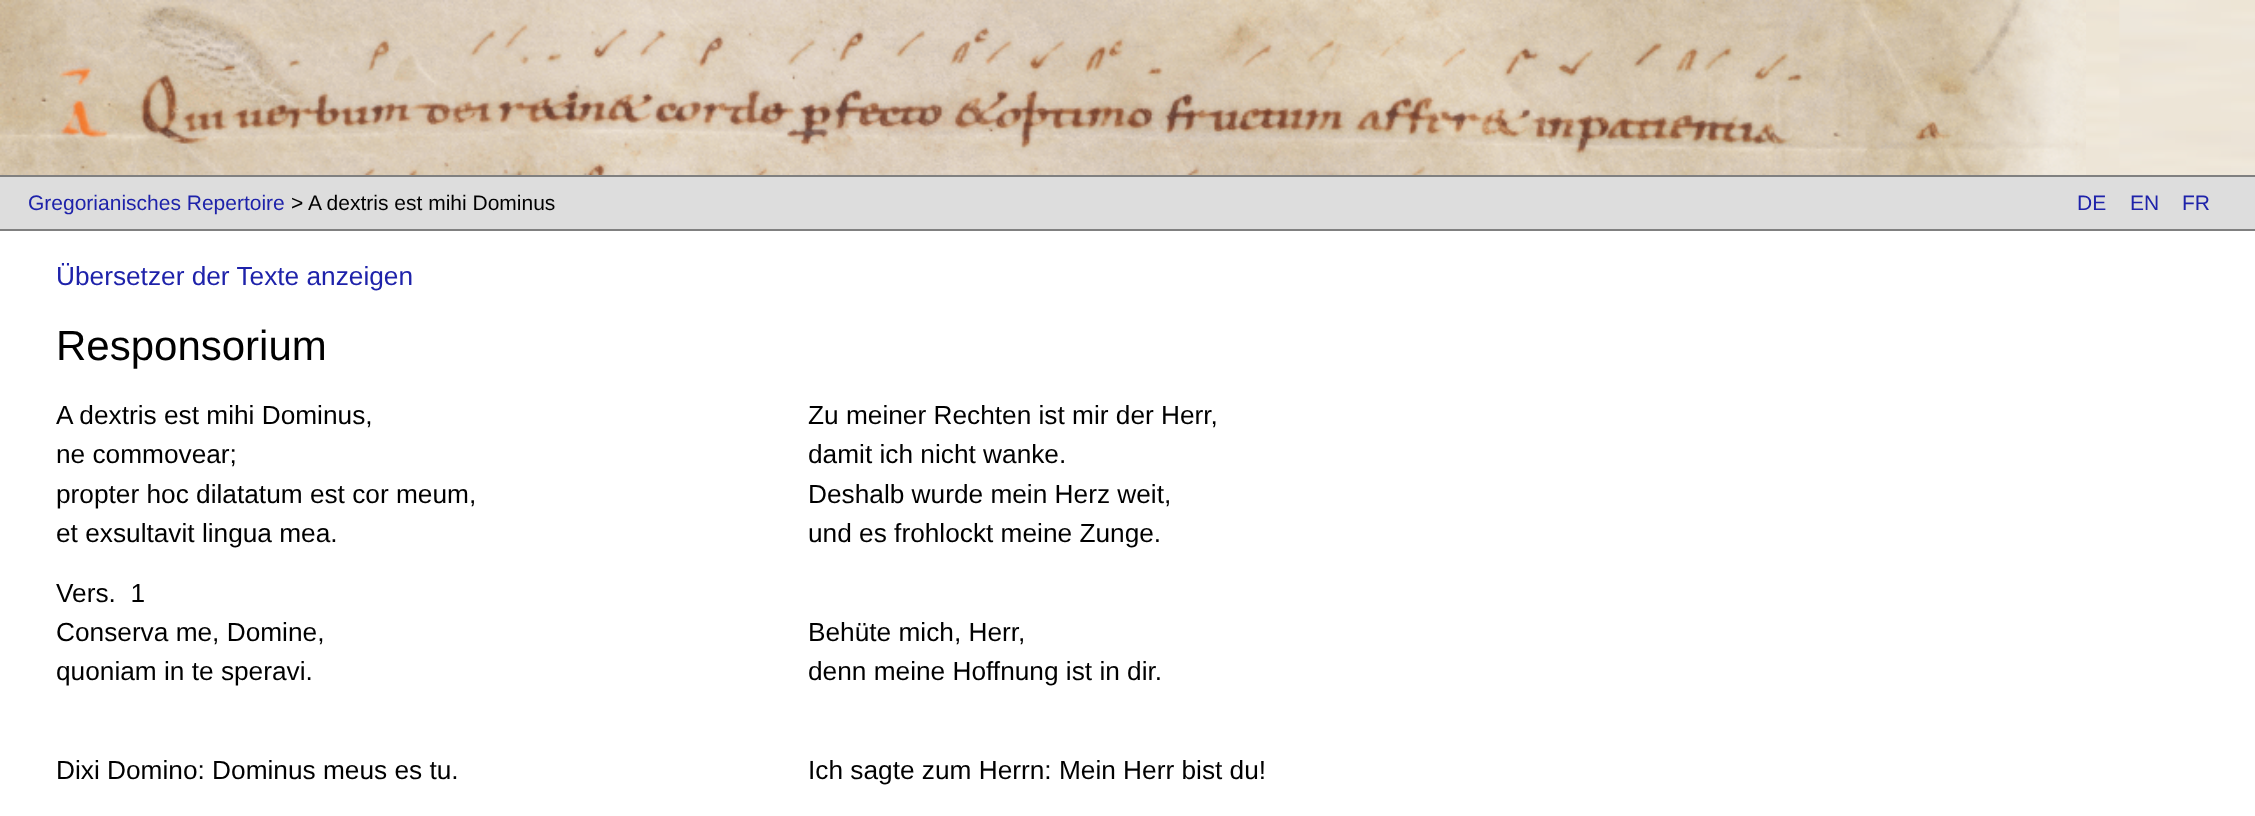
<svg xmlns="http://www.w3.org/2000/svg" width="2255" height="816">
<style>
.a{font:21px Liberation Sans;fill:#1e22aa}
.b{font:21px Liberation Sans;fill:#000}
.c{font:26.25px Liberation Sans;fill:#1e22aa}
.d{font:42px Liberation Sans;fill:#000}
.e{font:26.25px Liberation Sans;fill:#000}
</style>
<rect width="100%" height="100%" fill="#fff"/>
<image href="1.png" x="2086" y="0" width="169" height="175"/>
<image href="2.png" x="0" y="0" width="2086" height="175"/>
<path fill="#ddd" d="M0 177h2255v52H0z"/>
<path fill="#808080" d="M0 175h2255v2H0z"/>
<path fill="#808080" d="M0 229h2255v2H0z"/>
<text class="a" x="28" y="210">Gregorianisches Repertoire</text>
<text class="b" x="291" y="210">&gt; A dextris est mihi Dominus</text>
<text class="a" x="2077" y="210">DE</text>
<text class="a" x="2130" y="210">EN</text>
<text class="a" x="2182" y="210">FR</text>
<text class="c" x="56" y="285">Übersetzer der Texte anzeigen</text>
<text class="d" x="56" y="360">Responsorium</text>
<text class="e" x="56" y="424">A dextris est mihi Dominus,</text>
<text class="e" x="56" y="463">ne commovear;</text>
<text class="e" x="56" y="503">propter hoc dilatatum est cor meum,</text>
<text class="e" x="56" y="542">et exsultavit lingua mea.</text>
<text class="e" x="808" y="424">Zu meiner Rechten ist mir der Herr,</text>
<text class="e" x="808" y="463">damit ich nicht wanke.</text>
<text class="e" x="808" y="503">Deshalb wurde mein Herz weit,</text>
<text class="e" x="808" y="542">und es frohlockt meine Zunge.</text>
<text class="e" xml:space="preserve" x="56" y="602">Vers.  1</text>
<text class="e" x="56" y="641">Conserva me, Domine,</text>
<text class="e" x="56" y="680">quoniam in te speravi.</text>
<text class="e" x="808" y="641">Behüte mich, Herr,</text>
<text class="e" x="808" y="680">denn meine Hoffnung ist in dir.</text>
<text class="e" x="56" y="779">Dixi Domino: Dominus meus es tu.</text>
<text class="e" x="808" y="779">Ich sagte zum Herrn: Mein Herr bist du!</text>
</svg>
